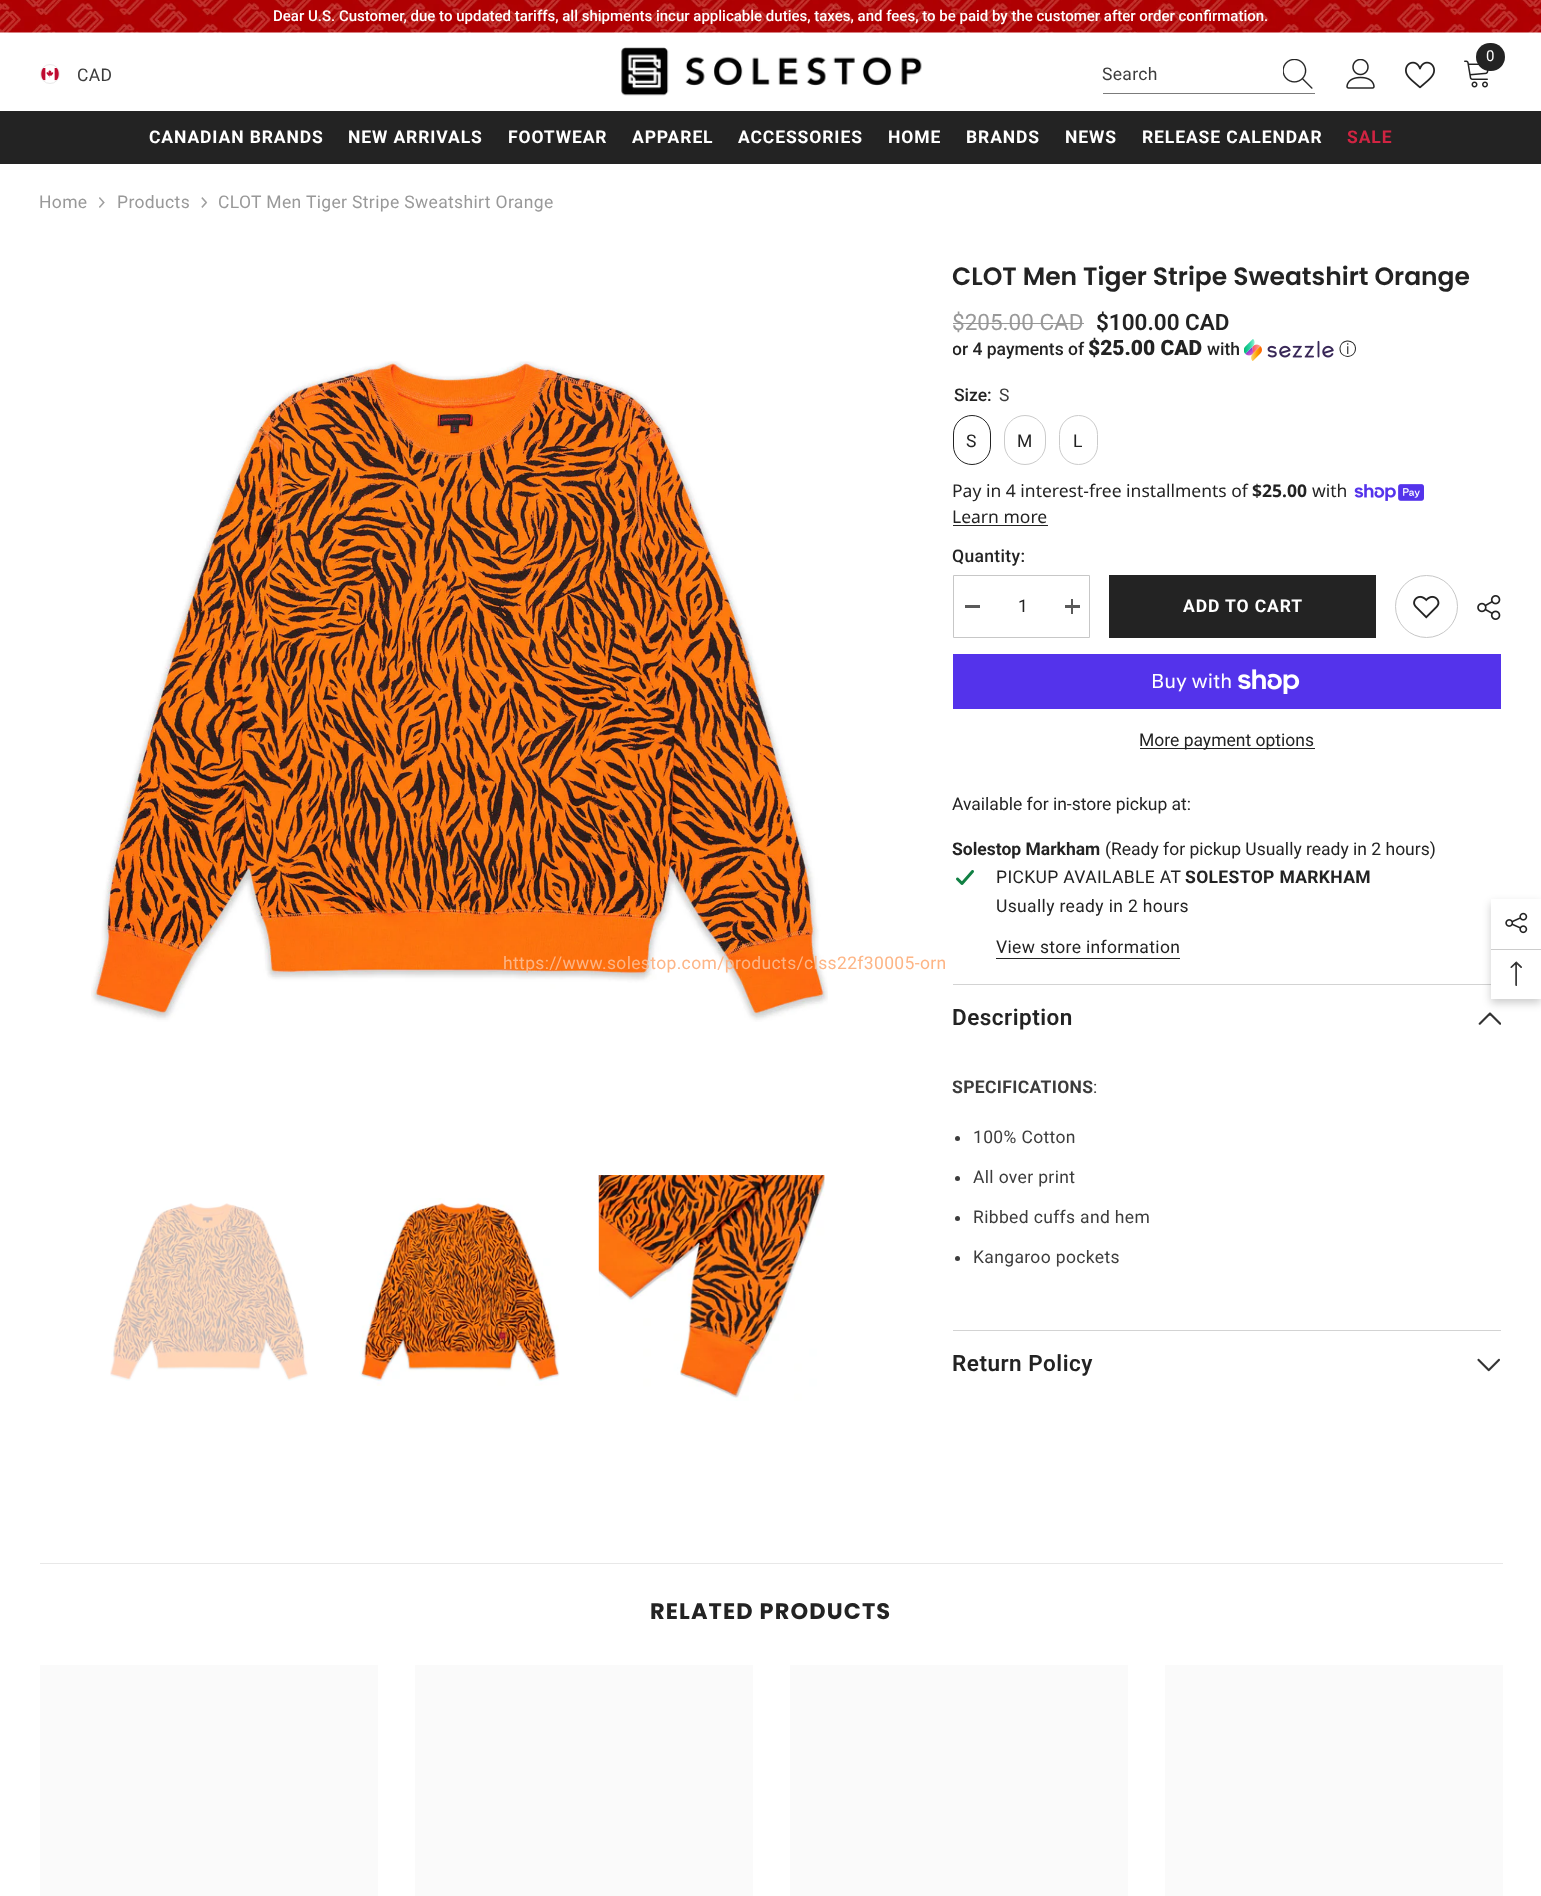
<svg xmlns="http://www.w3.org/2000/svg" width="1541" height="1896">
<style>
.a{font:500 15px Roboto;fill:#fff}
.b{font:17.5px Roboto;letter-spacing:0.35px;fill:#3c3c3c}
.c{font:15px Roboto;fill:#fff}
.d{font:bold 17.5px Roboto;letter-spacing:0.9px;fill:#fff}
.e{font:bold 17.5px Roboto;letter-spacing:0.9px;fill:#d12442}
.f{font:17.5px Roboto;letter-spacing:0.35px;fill:#999}
.g{font:600 25px Poppins;fill:#232323}
.h{font:22.5px Roboto;fill:#999}
.i{font:600 22.5px Roboto;fill:#232323}
.j{font:500 17.5px Roboto;fill:#232323}
.k{font:900 21px Roboto;fill:#232323}
.l{font:500 17.5px WenQuanYi Zen Hei;fill:#232323}
.m{font:17.5px Roboto;fill:#3c3c3c}
.n{font:17.5px Roboto;letter-spacing:0.35px;fill:#232323}
.o{font:17.5px Noto Sans;fill:#232323}
.p{font:bold 17.5px Noto Sans;fill:#232323}
.q{font:500 17.5px Roboto;letter-spacing:0.35px;fill:#232323}
.r{font:17.5px Roboto;letter-spacing:0.35px;fill:#fdb586}
.s{font:20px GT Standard;fill:#fff}
.t{font:17.5px Roboto;fill:#232323}
.u{font:bold 17.5px Roboto;fill:#232323}
.v{font:bold 17.5px Roboto;letter-spacing:0.35px;fill:#232323}
.w{font:600 22.5px Roboto;letter-spacing:0.5px;fill:#232323}
.x{font:bold 17.5px Roboto;letter-spacing:0.35px;fill:#3c3c3c}
.y{font:bold 22.5px Poppins;letter-spacing:1.1px;fill:#232323}
</style>
<defs>
<linearGradient id="g1" gradientUnits="userSpaceOnUse" x1="-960" y1="1889" x2="1540" y2="1889"><stop offset="0.04" stop-color="#fafafa"/><stop offset="0.25" stop-color="#f1f2f3"/><stop offset="0.36" stop-color="#fafafa"/></linearGradient>
<linearGradient id="g2" gradientUnits="userSpaceOnUse" x1="-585" y1="1889" x2="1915" y2="1889"><stop offset="0.04" stop-color="#fafafa"/><stop offset="0.25" stop-color="#f1f2f3"/><stop offset="0.36" stop-color="#fafafa"/></linearGradient>
<linearGradient id="g3" gradientUnits="userSpaceOnUse" x1="-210" y1="1889" x2="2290" y2="1889"><stop offset="0.04" stop-color="#fafafa"/><stop offset="0.25" stop-color="#f1f2f3"/><stop offset="0.36" stop-color="#fafafa"/></linearGradient>
<linearGradient id="g4" gradientUnits="userSpaceOnUse" x1="165" y1="1889" x2="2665" y2="1889"><stop offset="0.04" stop-color="#fafafa"/><stop offset="0.25" stop-color="#f1f2f3"/><stop offset="0.36" stop-color="#fafafa"/></linearGradient>
<clipPath id="clip1"><path d="M953 336h548v25H953z"/></clipPath>
</defs>
<rect width="100%" height="100%" fill="#fff"/>
<image href="1.png" x="0" y="0" width="1541" height="33"/>
<circle fill="none" stroke="#e9e9e9" cx="50" cy="74" r="9.5"/>
<image href="2.png" x="41" y="68" width="18" height="13"/>
<image href="3.png" x="621" y="47" width="301" height="49"/>
<image href="4.png" x="1464" y="60" width="25" height="28"/>
<rect fill="#232323" x="1476" y="43" width="29" height="28" rx="14"/>
<image href="5.png" x="1346" y="59" width="29" height="30"/>
<image href="6.png" x="1405" y="61" width="30" height="28"/>
<path fill="#7b7b7b" d="M1103 93h212v1H1103z"/>
<image href="7.png" x="1283" y="59" width="30" height="30"/>
<path fill="#232323" d="M0 111h1541v53H0z"/>
<image href="8.png" x="99" y="197" width="6" height="11"/>
<image href="9.png" x="201" y="197" width="7" height="11"/>
<image href="10.png" x="91" y="361" width="737" height="661"/>
<image href="11.png" x="110" y="1203" width="198" height="178"/>
<image href="12.png" x="359" y="1198" width="201" height="188"/>
<image href="13.png" x="598" y="1175" width="227" height="226"/>
<image href="14.png" x="1244" y="339" width="90" height="22"/>
<rect fill="none" stroke="#232323" x="953.5" y="415.5" width="37" height="49" rx="18.5"/>
<rect fill="none" stroke="#cbcbcb" x="1004.5" y="415.5" width="41" height="49" rx="20.5"/>
<rect fill="none" stroke="#cbcbcb" x="1059.5" y="415.5" width="38" height="49" rx="19"/>
<image href="15.png" x="1354" y="484" width="70" height="17"/>
<path fill="#232323" d="M953 525h95v1H953z"/>
<path fill="none" stroke="#c7c7c7" d="M953.5 575.5h136v62H953.5z"/>
<path fill="#5a5a5a" d="M965 605h15v3H965z"/>
<path fill="#5a5a5a" d="M1065 605h15v3H1065z"/>
<path fill="#5a5a5a" d="M1071 599h2v15H1071z"/>
<path fill="#232323" d="M1109 575h267v63H1109z"/>
<circle fill="none" stroke="#c7c7c7" cx="1426.5" cy="606.5" r="31"/>
<image href="16.png" x="1413" y="595" width="27" height="24"/>
<image href="17.png" x="1477" y="595" width="24" height="25"/>
<path fill="#5433eb" d="M953 654h548v55H953z"/>
<image href="18.png" x="1238" y="669" width="62" height="25"/>
<path fill="#232323" d="M1140 748h175v1H1140z"/>
<image href="19.png" x="956" y="870" width="18" height="15"/>
<path fill="#232323" d="M996 958h184v1H996z"/>
<path fill="#d3d3d3" d="M953 984h538v1H953z"/>
<image href="20.png" x="1478" y="1012" width="23" height="13"/>
<circle fill="#3c3c3c" cx="957.5" cy="1138.5" r="2.5"/>
<circle fill="#3c3c3c" cx="957.5" cy="1178.5" r="2.5"/>
<circle fill="#3c3c3c" cx="957.5" cy="1218.5" r="2.5"/>
<circle fill="#3c3c3c" cx="957.5" cy="1258.5" r="2.5"/>
<path fill="#d3d3d3" d="M953 1330h548v1H953z"/>
<image href="21.png" x="1477" y="1358" width="23" height="14"/>
<path fill="#e8e8e8" d="M40 1563h1463v1H40z"/>
<path fill="url(#g1)" d="M40 1665h338v231H40z"/>
<path fill="url(#g2)" d="M415 1665h338v231H415z"/>
<path fill="url(#g3)" d="M790 1665h338v231H790z"/>
<path fill="url(#g4)" d="M1165 1665h338v231H1165z"/>
<path fill="#00000033" filter="blur(4.5px)" d="M1491 903h50v100H1491z"/>
<path fill="#fff" d="M1491 899h50v100H1491z"/>
<image href="22.png" x="1505" y="912" width="23" height="22"/>
<path fill="#ccc" d="M1491 949h50v1H1491z"/>
<image href="23.png" x="1510" y="961" width="12" height="25"/>
<text class="a" x="273" y="21">Dear U.S. Customer, due to updated tariffs, all shipments incur applicable duties, taxes, and fees, to be paid by the customer after order confirmation.</text>
<text class="b" x="77" y="81">CAD</text>
<text class="c" x="1486" y="61">0</text>
<text class="b" x="1102" y="80">Search</text>
<text class="d" x="149" y="143">CANADIAN BRANDS</text>
<text class="d" x="348" y="143">NEW ARRIVALS</text>
<text class="d" x="508" y="143">FOOTWEAR</text>
<text class="d" x="632" y="143">APPAREL</text>
<text class="d" x="738" y="143">ACCESSORIES</text>
<text class="d" x="888" y="143">HOME</text>
<text class="d" x="966" y="143">BRANDS</text>
<text class="d" x="1065" y="143">NEWS</text>
<text class="d" x="1142" y="143">RELEASE CALENDAR</text>
<text class="e" x="1347" y="143">SALE</text>
<text class="f" x="39" y="208">Home</text>
<text class="f" x="117" y="208">Products</text>
<text class="f" x="218" y="208">CLOT Men Tiger Stripe Sweatshirt Orange</text>
<text class="g" x="952" y="285">CLOT Men Tiger Stripe Sweatshirt Orange</text>
<text class="h" x="952" y="330">$205.00 CAD</text>
<path fill="#969696" d="M953 323h131v1H953z"/>
<text class="i" x="1096" y="330">$100.00 CAD</text>
<g clip-path="url(#clip1)">
<text class="j" x="952" y="355">or 4 payments of</text>
</g>
<text class="k" x="1088" y="355">$25.00 CAD</text>
<text class="j" x="1207" y="355">with</text>
<text class="l" x="1339" y="355">ⓘ</text>
<text class="j" x="954" y="401">Size:</text>
<text class="m" x="999" y="401">S</text>
<text class="n" x="966" y="447">S</text>
<text class="n" x="1017" y="447">M</text>
<text class="n" x="1073" y="447">L</text>
<text class="o" x="952" y="497">Pay in 4 interest-free installments of</text>
<text class="p" x="1252" y="497">$25.00</text>
<text class="o" x="1312" y="497">with</text>
<text class="o" x="952" y="523">Learn more</text>
<text class="q" x="952" y="562">Quantity:</text>
<text class="n" x="1018" y="612">1</text>
<text class="d" x="1183" y="612">ADD TO CART</text>
<text class="r" x="503" y="969">https://www.solestop.com/products/clss22f30005-orn</text>
<text class="s" x="1151" y="688">Buy with</text>
<text class="t" x="1139" y="746">More payment options</text>
<text class="t" x="952" y="810">Available for in-store pickup at:</text>
<text class="u" x="952" y="855">Solestop Markham</text>
<text class="t" x="1105" y="855">(Ready for pickup Usually ready in 2 hours)</text>
<text class="n" x="996" y="883">PICKUP AVAILABLE AT</text>
<text class="v" x="1185" y="883">SOLESTOP MARKHAM</text>
<text class="n" x="996" y="912">Usually ready in 2 hours</text>
<text class="n" x="996" y="953">View store information</text>
<text class="w" x="952" y="1025">Description</text>
<text class="x" x="952" y="1093">SPECIFICATIONS</text>
<text class="b" x="1093" y="1093">:</text>
<text class="b" x="973" y="1143">100% Cotton</text>
<text class="b" x="973" y="1183">All over print</text>
<text class="b" x="973" y="1223">Ribbed cuffs and hem</text>
<text class="b" x="973" y="1263">Kangaroo pockets</text>
<text class="w" x="952" y="1371">Return Policy</text>
<text class="y" x="650" y="1619">RELATED PRODUCTS</text>
</svg>
